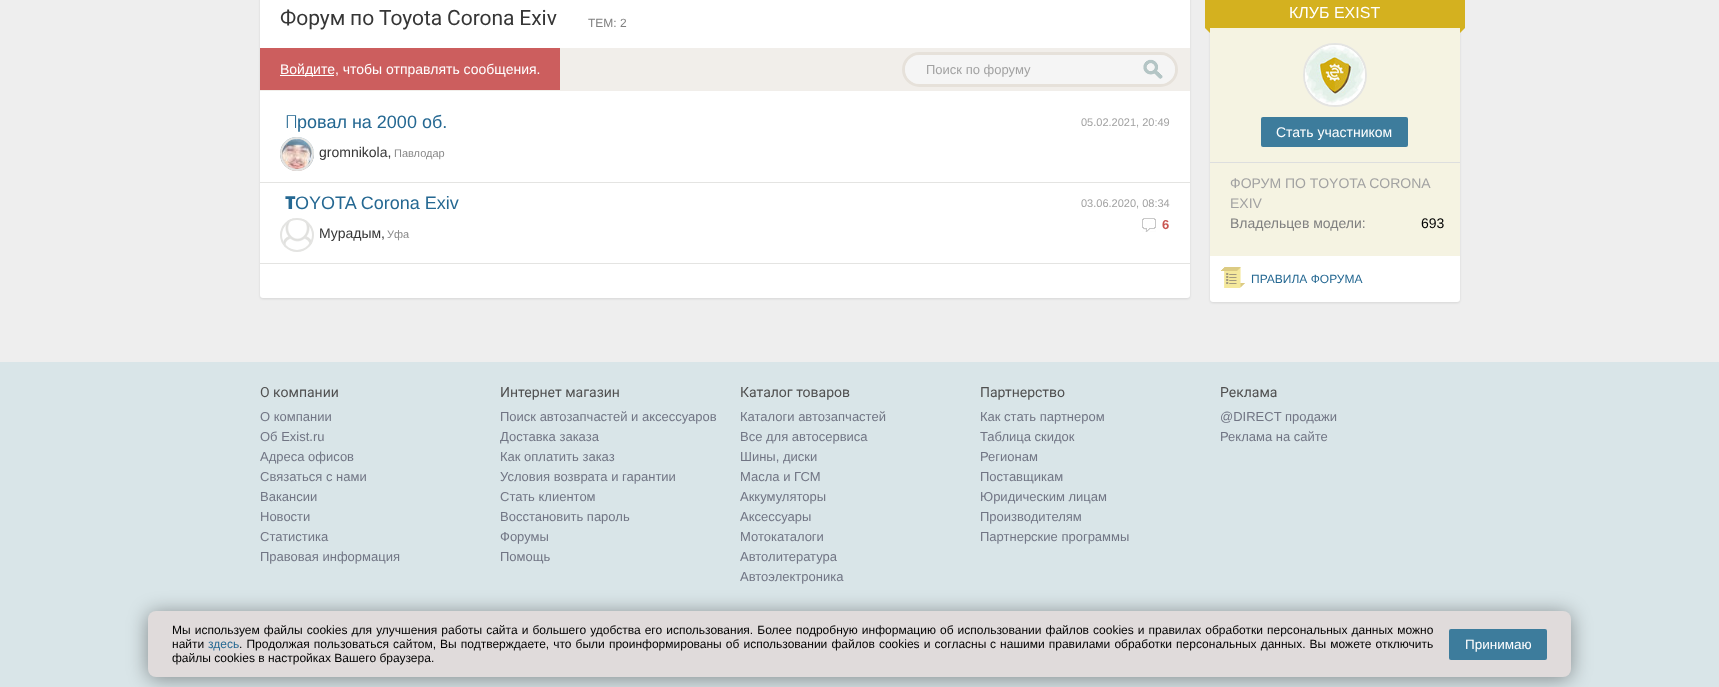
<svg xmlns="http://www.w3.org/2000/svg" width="1719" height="687">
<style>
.a{font:21px Roboto;fill:#363636}
.b{font:12px Liberation Sans;fill:#808080}
.c{font:14px Liberation Sans;fill:#fff}
.d{font:13px Liberation Sans;fill:#a2a2a2}
.e{font:300 18px Noto Sans;fill:#256892}
.f{font:18px Liberation Sans;fill:#256892}
.g{font:11px Liberation Sans;fill:#a2a2a2}
.h{font:14px Liberation Sans;fill:#363636}
.i{font:11px Liberation Sans;fill:#888}
.j{font:900 18px Noto Sans;fill:#256892}
.k{font:bold 13px Liberation Sans;fill:#c95550}
.l{font:16px Liberation Sans;fill:#fff}
.m{font:14px Liberation Sans;fill:#a2a2a2}
.n{font:14px Liberation Sans;fill:#808080}
.o{font:14px Liberation Sans;fill:#000}
.p{font:12px Liberation Sans;fill:#256892}
.q{font:14px Roboto;fill:#505050}
.r{font:13px Liberation Sans;fill:#717584}
.s{font:12px Liberation Sans;fill:#000}
.t{font:13.5px Liberation Sans;fill:#fff}
</style>
<rect width="100%" height="100%" fill="#eee"/>
<rect fill="#0000001a" filter="blur(1px)" x="260" y="-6" width="930" height="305" rx="3"/>
<rect fill="#fff" x="260" y="-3" width="930" height="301" rx="3"/>
<path fill="#f1eeea" d="M260 48h930v43H260z"/>
<path fill="#cc5e5e" d="M260 48h300v42H260z"/>
<path fill="#fff" d="M280 75h54v1H280z"/>
<rect fill="none" stroke="#e6e1da" stroke-width="3" x="903.5" y="53.5" width="273" height="32" rx="16"/>
<rect fill="#f5f5f5" x="905" y="55" width="270" height="29" rx="14.5"/>
<image href="1.png" x="1143" y="59" width="20" height="20"/>
<path fill="#e4e4e2" d="M260 182h930v1H260z"/>
<image href="2.png" x="280" y="137" width="34" height="34"/>
<circle fill="none" stroke="#e4e4e2" stroke-width="2" cx="297" cy="154" r="16"/>
<path fill="#e4e4e2" d="M260 263h930v1H260z"/>
<image href="3.png" x="1142" y="218" width="14" height="14"/>
<image href="4.png" x="283" y="218" width="29" height="30"/>
<circle fill="none" stroke="#e4e4e2" stroke-width="2" cx="297" cy="235" r="16"/>
<rect fill="#0000001a" filter="blur(1px)" x="1210" y="-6" width="250" height="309" rx="3"/>
<rect fill="#fff" x="1210" y="-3" width="250" height="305" rx="3"/>
<path fill="#f5f3e2" d="M1210 28h250v228H1210z"/>
<path fill="#d4b11f" d="M1205 0h260v28H1205z"/>
<path fill="#d4b11f" d="M1210 23v10l-5-5z"/>
<path fill="#d4b11f" d="M1460 33v-10l5 5z"/>
<circle fill="#fff" stroke="#e4e4e2" stroke-width="2" cx="1335" cy="75" r="31"/>
<image href="5.png" x="1305" y="45" width="60" height="60"/>
<rect fill="#3d7c9c" x="1261" y="117" width="147" height="30" rx="2"/>
<path fill="#dddede" d="M1210 162h250v1H1210z"/>
<image href="6.png" x="1221" y="267" width="24" height="21"/>
<path fill="#d9e5e8" d="M0 362h1719v325H0z"/>
<rect fill="#00000066" filter="blur(10px)" x="148" y="613" width="1423" height="66" rx="8"/>
<rect fill="#e0dbdb" x="148" y="611" width="1423" height="66" rx="8"/>
<rect fill="#3d7c9c" x="1449" y="629" width="98" height="31" rx="2"/>
<text class="a" x="280" y="25" word-spacing="-0.5">Форум по Toyota Corona Exiv</text>
<text class="b" x="588" y="27">ТЕМ: 2</text>
<text class="c" x="280" y="74">Войдите, чтобы отправлять сообщения.</text>
<text class="d" x="926" y="74">Поиск по форуму</text>
<text class="e" x="285" y="128">П</text>
<text class="f" x="297" y="128">ровал на 2000 об.</text>
<text class="g" x="1081" y="126">05.02.2021, 20:49</text>
<text class="h" x="319" y="157">gromnikola,</text>
<text class="i" x="394" y="157">Павлодар</text>
<text class="j" x="285" y="209">T</text>
<text class="f" x="295" y="209">OYOTA Corona Exiv</text>
<text class="g" x="1081" y="207">03.06.2020, 08:34</text>
<text class="k" x="1162" y="229">6</text>
<text class="h" x="319" y="238">Мурадым,</text>
<text class="i" x="387" y="238">Уфа</text>
<text class="l" x="1289" y="18">КЛУБ EXIST</text>
<text class="c" x="1276" y="137">Cтать участником</text>
<text class="m" x="1230" y="188">ФОРУМ ПО TOYOTA CORONA</text>
<text class="m" x="1230" y="208">EXIV</text>
<text class="n" x="1230" y="228">Владельцев модели:</text>
<text class="o" x="1421" y="228">693</text>
<text class="p" x="1251" y="283">ПРАВИЛА ФОРУМА</text>
<text class="q" x="260" y="397">О компании</text>
<text class="r" x="260" y="421">О компании</text>
<text class="r" x="260" y="441">Об Exist.ru</text>
<text class="r" x="260" y="461">Адреса офисов</text>
<text class="r" x="260" y="481">Связаться с нами</text>
<text class="r" x="260" y="501">Вакансии</text>
<text class="r" x="260" y="521">Новости</text>
<text class="r" x="260" y="541">Статистика</text>
<text class="r" x="260" y="561">Правовая информация</text>
<text class="q" x="500" y="397">Интернет магазин</text>
<text class="r" x="500" y="421">Поиск автозапчастей и аксессуаров</text>
<text class="r" x="500" y="441">Доставка заказа</text>
<text class="r" x="500" y="461">Как оплатить заказ</text>
<text class="r" x="500" y="481">Условия возврата и гарантии</text>
<text class="r" x="500" y="501">Стать клиентом</text>
<text class="r" x="500" y="521">Восстановить пароль</text>
<text class="r" x="500" y="541">Форумы</text>
<text class="r" x="500" y="561">Помощь</text>
<text class="q" x="740" y="397">Каталог товаров</text>
<text class="r" x="740" y="421">Каталоги автозапчастей</text>
<text class="r" x="740" y="441">Все для автосервиса</text>
<text class="r" x="740" y="461">Шины, диски</text>
<text class="r" x="740" y="481">Масла и ГСМ</text>
<text class="r" x="740" y="501">Аккумуляторы</text>
<text class="r" x="740" y="521">Аксессуары</text>
<text class="r" x="740" y="541">Мотокаталоги</text>
<text class="r" x="740" y="561">Автолитература</text>
<text class="r" x="740" y="581">Автоэлектроника</text>
<text class="q" x="980" y="397">Партнерство</text>
<text class="r" x="980" y="421">Как стать партнером</text>
<text class="r" x="980" y="441">Таблица скидок</text>
<text class="r" x="980" y="461">Регионам</text>
<text class="r" x="980" y="481">Поставщикам</text>
<text class="r" x="980" y="501">Юридическим лицам</text>
<text class="r" x="980" y="521">Производителям</text>
<text class="r" x="980" y="541">Партнерские программы</text>
<text class="q" x="1220" y="397">Реклама</text>
<text class="r" x="1220" y="421">@DIRECT продажи</text>
<text class="r" x="1220" y="441">Реклама на сайте</text>
<text class="s" x="172" y="634" word-spacing="0.75">Мы используем файлы cookies для улучшения работы сайта и большего удобства его использования. Более подробную информацию об использовании файлов cookies и правилах обработки персональных данных можно</text>
<text class="s" x="172" y="648">найти</text>
<text class="p" x="208" y="648">здесь</text>
<text class="s" x="239" y="648" word-spacing="0.75">. Продолжая пользоваться сайтом, Вы подтверждаете, что были проинформированы об использовании файлов cookies и согласны</text>
<text class="s" x="990" y="648" word-spacing="0.75">с нашими правилами обработки персональных данных. Вы можете отключить</text>
<text class="s" x="172" y="662">файлы cookies в настройках Вашего браузера.</text>
<text class="t" x="1465" y="649">Принимаю</text>
</svg>
